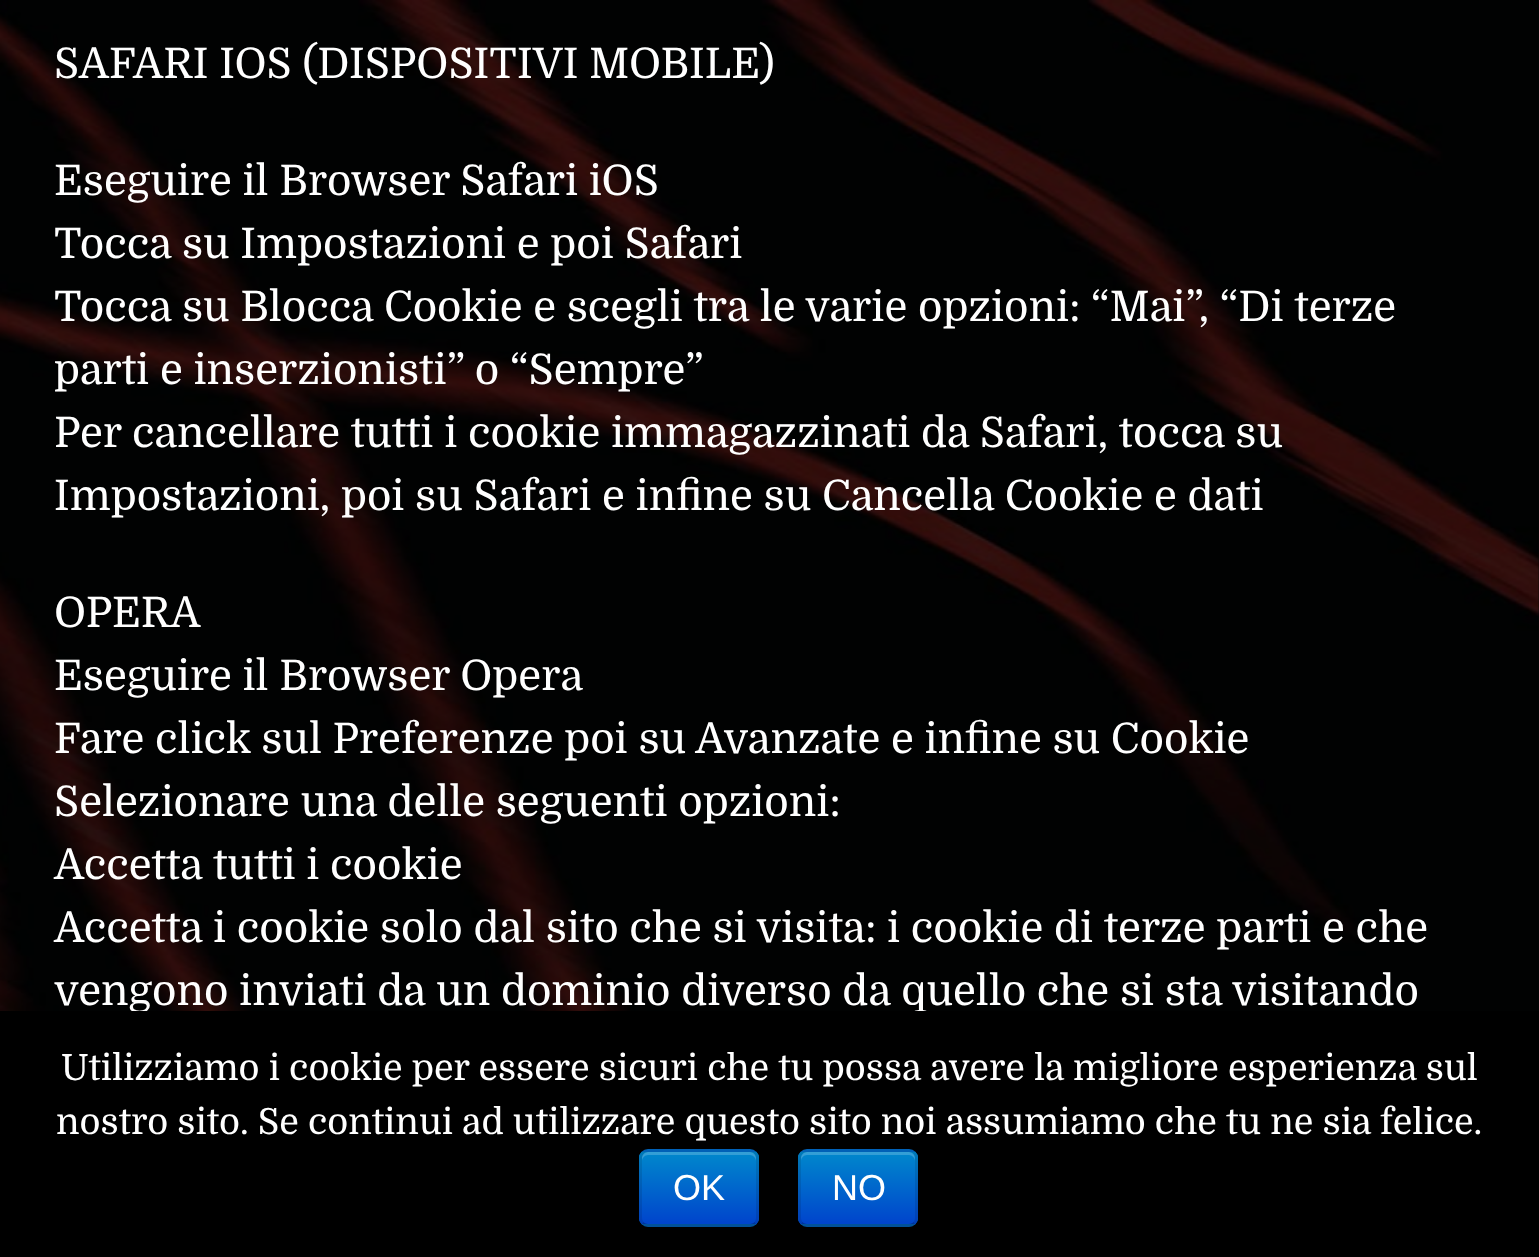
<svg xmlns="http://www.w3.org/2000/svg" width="1539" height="1257">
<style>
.a{font:42px Domine;fill:#fff}
.b{font:36px Domine;fill:#fff}
.c{font:36px Liberation Sans;fill:#fff}
</style>
<defs>
<clipPath id="clip1"><rect x="639" y="1149" width="120" height="78" rx="9"/></clipPath>
<linearGradient id="g1" gradientUnits="userSpaceOnUse" x1="699" y1="1152" x2="699" y2="1224"><stop offset="0" stop-color="#08c"/><stop offset="1" stop-color="#04c"/></linearGradient>
<clipPath id="clip2"><rect x="798" y="1149" width="120" height="78" rx="9"/></clipPath>
<linearGradient id="g2" gradientUnits="userSpaceOnUse" x1="858" y1="1152" x2="858" y2="1224"><stop offset="0" stop-color="#08c"/><stop offset="1" stop-color="#04c"/></linearGradient>
</defs>
<rect width="100%" height="100%" fill="#070707"/>
<image href="1.png" x="0" y="0" width="1539" height="1011"/>
<text class="a" x="54" y="78">SAFARI IOS (DISPOSITIVI MOBILE)</text>
<text class="a" x="54" y="195">Eseguire il Browser Safari iOS</text>
<text class="a" x="54" y="258">Tocca su Impostazioni e poi Safari</text>
<text class="a" x="54" y="321">Tocca su Blocca Cookie e scegli tra le varie opzioni: “Mai”, “Di terze</text>
<text class="a" x="54" y="384">parti e inserzionisti” o “Sempre”</text>
<text class="a" x="54" y="447">Per cancellare tutti i cookie immagazzinati da Safari, tocca su</text>
<text class="a" x="54" y="510">Impostazioni, poi su Safari e infine su Cancella Cookie e dati</text>
<text class="a" x="54" y="627">OPERA</text>
<text class="a" x="54" y="690">Eseguire il Browser Opera</text>
<text class="a" x="54" y="753">Fare click sul Preferenze poi su Avanzate e infine su Cookie</text>
<text class="a" x="54" y="816">Selezionare una delle seguenti opzioni:</text>
<text class="a" x="54" y="879">Accetta tutti i cookie</text>
<text class="a" x="54" y="942">Accetta i cookie solo dal sito che si visita: i cookie di terze parti e che</text>
<text class="a" x="54" y="1005">vengono inviati da un dominio diverso da quello che si sta visitando</text>
<path fill="#000" d="M0 1011h1539v246H0z"/>
<text class="b" x="61" y="1080">Utilizziamo i cookie per essere sicuri che tu possa avere la migliore esperienza sul</text>
<text class="b" x="56" y="1134">nostro sito. Se continui ad utilizzare questo sito noi assumiamo che tu ne sia felice.</text>
<rect fill="#006dcc" x="639" y="1149" width="120" height="78" rx="9"/>
<g clip-path="url(#clip1)">
<path fill="url(#g1)" d="M639 1152h120v72H639z"/>
</g>
<path fill="#ffffff33" d="M648 1155h102c3 0 6 3 6 6v-3c0-3-3-6-6-6h-102c-3 0-6 3-6 6v3c0-3 3-6 6-6z"/>
<path fill="none" stroke="#00000040" stroke-width="3" d="M755.5 1223.5c-1.5 1-3.5 2-5.5 2h-102c-2 0-4-1-5.5-2"/>
<path fill="none" stroke="#0000001a" stroke-width="3" d="M642.5 1223.5c-1-1.5-2-3.5-2-5.5v-60c0-2 1-4 2-5.5c1.5-1 3.5-2 5.5-2h102c2 0 4 1 5.5 2c1 1.5 2 3.5 2 5.5v60c0 2-1 4-2 5.5"/>
<text class="c" x="673" y="1200">OK</text>
<rect fill="#006dcc" x="798" y="1149" width="120" height="78" rx="9"/>
<g clip-path="url(#clip2)">
<path fill="url(#g2)" d="M798 1152h120v72H798z"/>
</g>
<path fill="#ffffff33" d="M807 1155h102c3 0 6 3 6 6v-3c0-3-3-6-6-6h-102c-3 0-6 3-6 6v3c0-3 3-6 6-6z"/>
<path fill="none" stroke="#00000040" stroke-width="3" d="M914.5 1223.5c-1.5 1-3.5 2-5.5 2h-102c-2 0-4-1-5.5-2"/>
<path fill="none" stroke="#0000001a" stroke-width="3" d="M801.5 1223.5c-1-1.5-2-3.5-2-5.5v-60c0-2 1-4 2-5.5c1.5-1 3.5-2 5.5-2h102c2 0 4 1 5.5 2c1 1.5 2 3.5 2 5.5v60c0 2-1 4-2 5.5"/>
<text class="c" x="832" y="1200">NO</text>
</svg>
